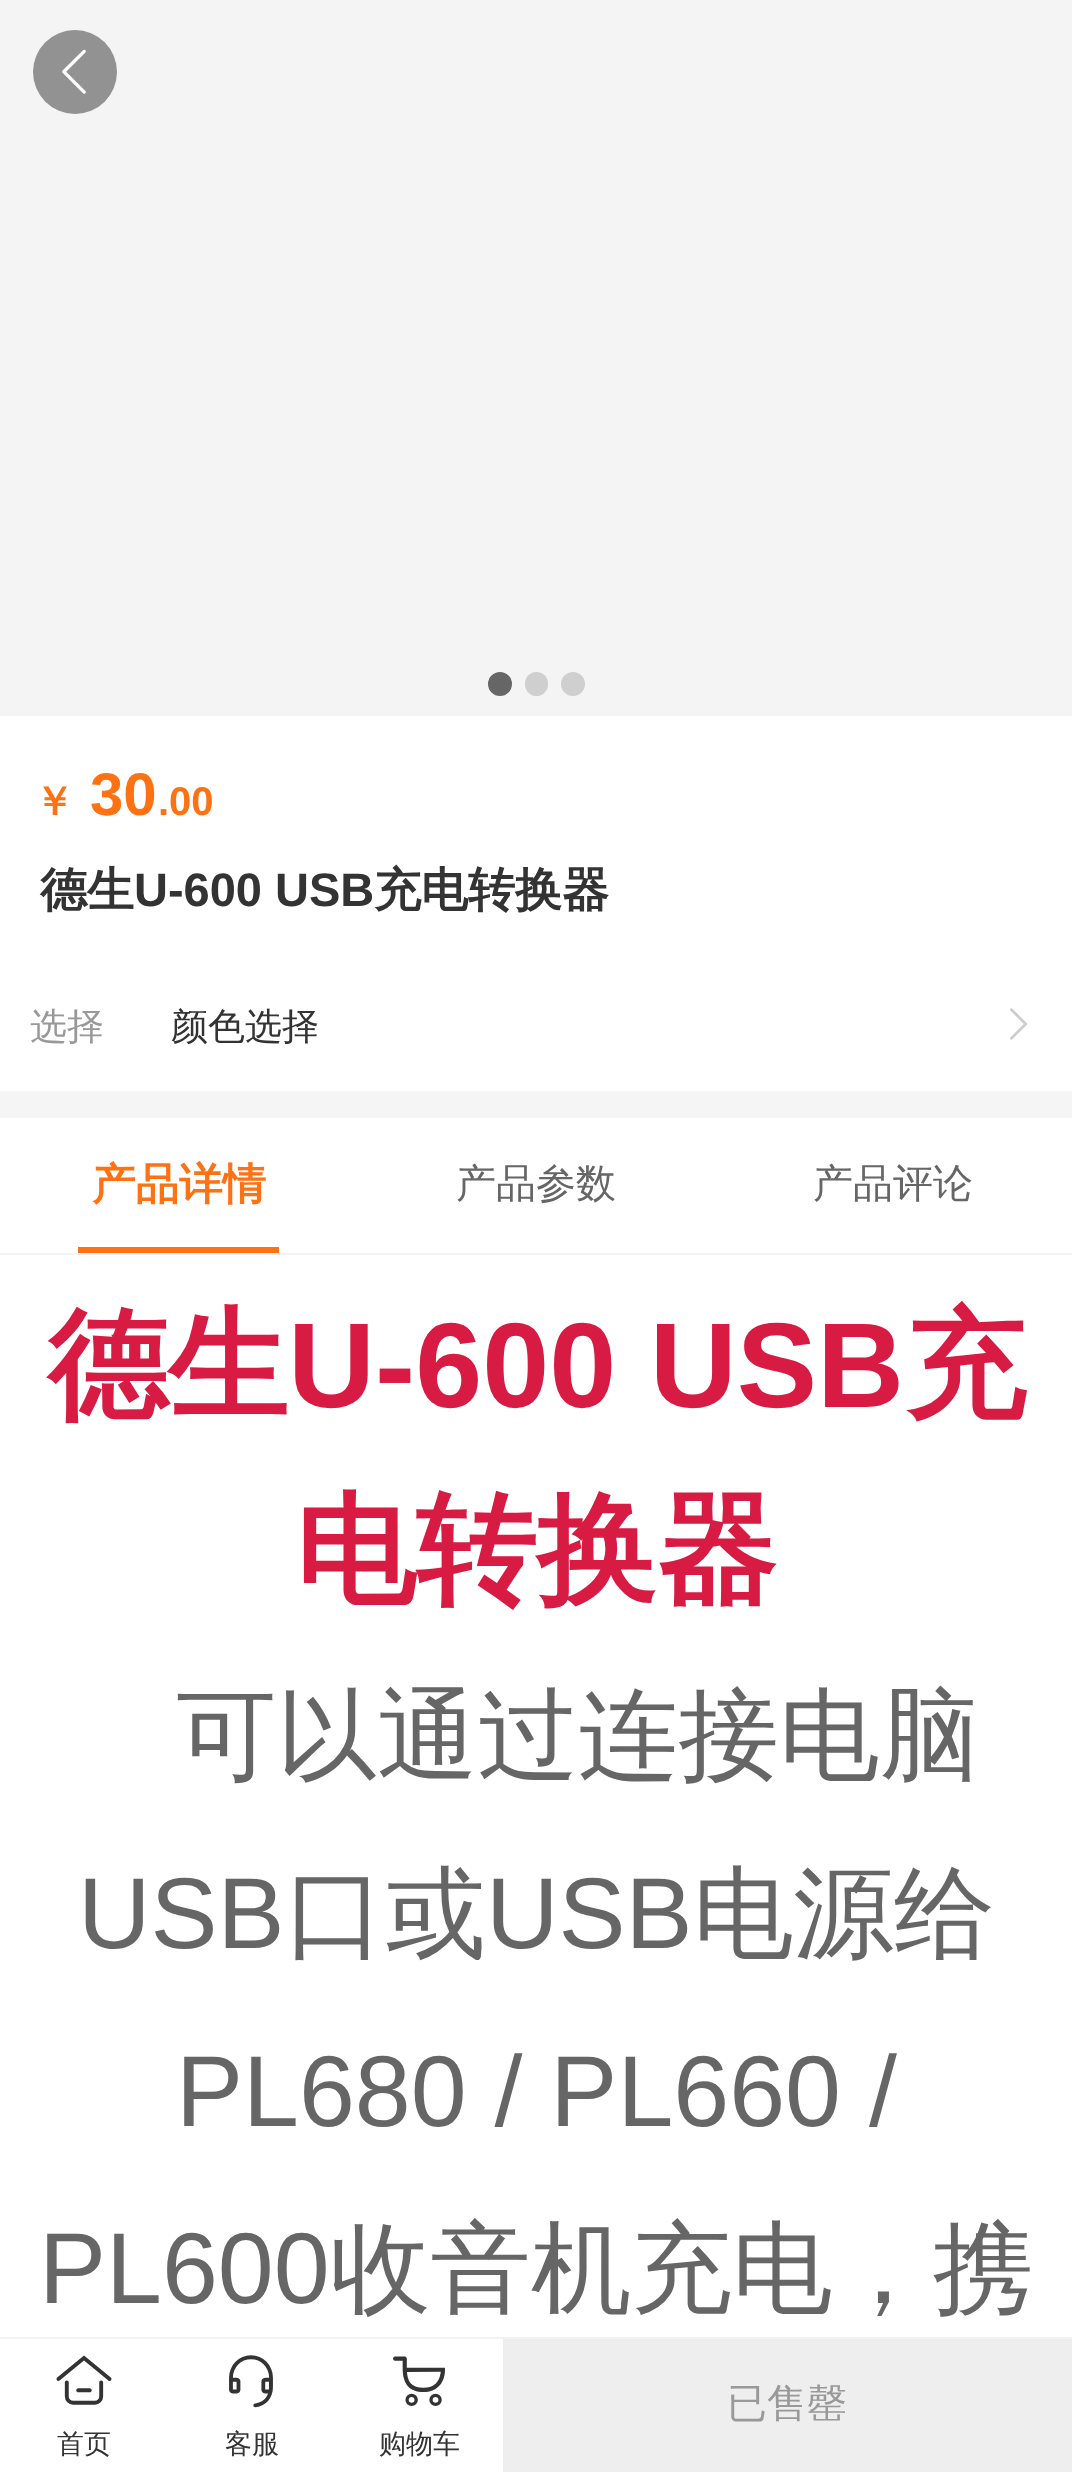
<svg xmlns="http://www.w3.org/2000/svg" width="1072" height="2472">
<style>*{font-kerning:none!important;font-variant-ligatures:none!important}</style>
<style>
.a{font:44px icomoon;fill:#fff}
.b{font:bold 40px WenQuanYi Zen Hei;fill:#ff7214}
.c{font:bold 60px Liberation Sans;fill:#ff7214}
.d{font:bold 40px Liberation Sans;fill:#ff7214}
.e{font:bold 47px WenQuanYi Zen Hei;fill:#333}
.f{font:bold 47px Liberation Sans;fill:#333}
.g{font:500 37px WenQuanYi Zen Hei;fill:#999}
.h{font:500 37px WenQuanYi Zen Hei;fill:#333}
.i{font:bold 43.5px WenQuanYi Zen Hei;fill:#ff7214}
.j{font:500 40px WenQuanYi Zen Hei;fill:#666}
.k{font:bold 120.5px WenQuanYi Zen Hei;fill:#d81b43}
.l{font:bold 120.5px Liberation Sans;fill:#d81b43}
.m{font:500 100.5px WenQuanYi Zen Hei;fill:#666}
.n{font:100.5px Liberation Sans;fill:#666}
.o{font:55px icomoon;fill:#333}
.p{font:500 27px WenQuanYi Zen Hei;fill:#333}
.q{font:52px icomoon;fill:#333}
.r{font:500 40px WenQuanYi Zen Hei;fill:#999}
</style>
<rect width="100%" height="100%" fill="#fff"/>
<path fill="#f4f4f4" d="M0 0h1072v716H0z"/>
<circle fill="#929292" cx="75" cy="72" r="42"/>
<circle fill="#666" cx="500" cy="684" r="12"/>
<rect fill="#cfcfcf" x="525" y="672" width="23" height="24" rx="11.5"/>
<circle fill="#cfcfcf" cx="573" cy="684" r="12"/>
<image href="1.png" x="1010" y="1008" width="17" height="32"/>
<path fill="#f5f5f5" d="M0 1091h1072v27H0z"/>
<path fill="#f3f3f3" d="M0 1253h1072v2H0z"/>
<path fill="#ff7214" d="M78 1247h201v6H78z"/>
<path fill="#f3f3f3" d="M0 2337h1072v2H0z"/>
<path fill="#eee" d="M503 2339h569v133H503z"/>
<text class="a" x="52" y="90">򰊔</text>
<text class="b" x="34" y="815">￥</text>
<text class="c" x="90" y="815">30</text>
<text class="d" x="158" y="815">.00</text>
<text class="e" x="40" y="906">德生</text>
<text class="f" x="134" y="906">U-600 USB</text>
<text class="e" x="374" y="906">充电转换器</text>
<text class="g" x="30" y="1039">选择</text>
<text class="h" x="171" y="1039">颜色选择</text>
<text class="i" x="92" y="1199">产品详情</text>
<text class="j" x="456" y="1197">产品参数</text>
<text class="j" x="813" y="1197">产品评论</text>
<text class="k" x="47" y="1407">德生</text>
<text class="l" x="288" y="1407">U-600 USB</text>
<text class="k" x="905" y="1407">充</text>
<text class="k" x="295" y="1592">电转换器</text>
<text class="m" x="176" y="1770">可以通过连接电脑</text>
<text class="n" x="78" y="1948">USB</text>
<text class="m" x="285" y="1948">口或</text>
<text class="n" x="486" y="1948">USB</text>
<text class="m" x="693" y="1948">电源给</text>
<text class="n" x="176" y="2126">PL680 / PL660 /</text>
<text class="n" x="39" y="2303">PL600</text>
<text class="m" x="330" y="2303">收音机充电，携</text>
<text class="o" x="56" y="2403">򰌓</text>
<text class="p" x="57" y="2453">首页</text>
<text class="q" x="225" y="2403">򰊘</text>
<text class="p" x="225" y="2453">客服</text>
<text class="q" x="393" y="2403">򰊒</text>
<text class="p" x="379" y="2453">购物车</text>
<text class="r" x="727" y="2417">已售罄</text>
</svg>
